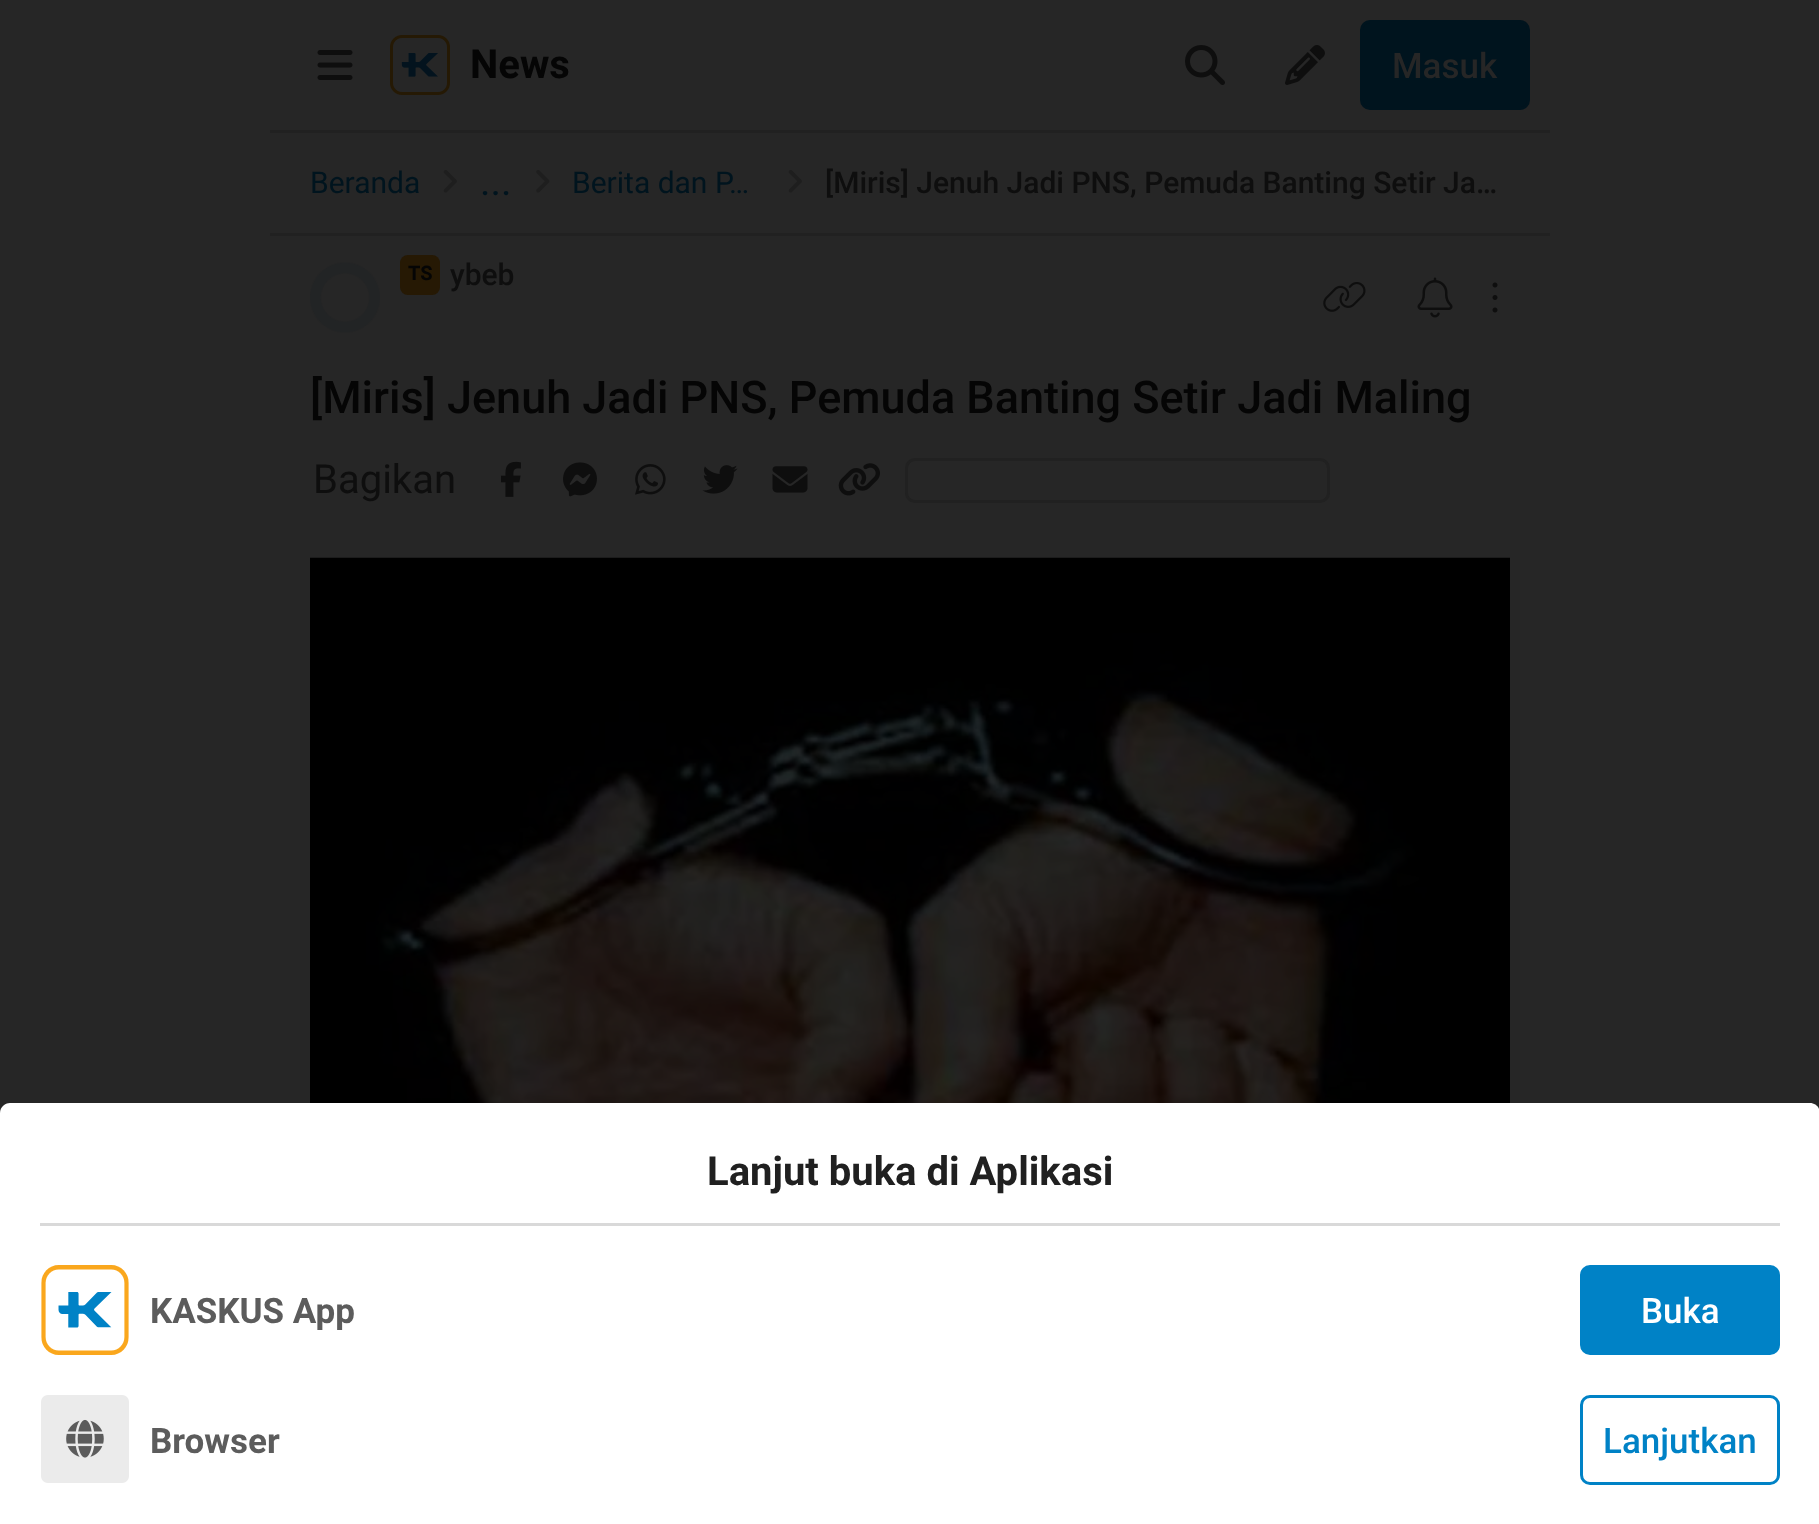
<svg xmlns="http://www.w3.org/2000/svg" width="1819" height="1524">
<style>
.a{font:bold 40px Roboto;fill:#050505}
.b{font:500 35px Roboto;fill:#262626}
.c{font:30px Roboto;fill:#00141e}
.d{font:40px Roboto;fill:#00141e}
.e{font:500 30px Roboto;fill:#0e0e0e}
.f{font:bold 20px Roboto;fill:#050505}
.g{font:500 45px Roboto;fill:#050505}
.h{font:40px Roboto;fill:#0e0e0e}
.i{font:bold 40px Roboto;fill:#202020}
.j{font:bold 35px Roboto;fill:#5c5c5c}
.k{font:500 35px Roboto;fill:#fff}
.l{font:500 35px Roboto;fill:#0082c6}
</style>
<rect width="100%" height="100%" fill="#262626"/>
<path fill="#212121" d="M270 130h1280v3H270z"/>
<image href="1.png" x="317" y="50" width="36" height="30"/>
<image href="2.png" x="390" y="35" width="60" height="60"/>
<image href="3.png" x="1185" y="45" width="40" height="40"/>
<image href="4.png" x="1285" y="45" width="40" height="40"/>
<rect fill="#00141e" stroke="#00141e" stroke-width="3" x="1361.5" y="21.5" width="167" height="87" rx="8.5"/>
<image href="5.png" x="443" y="170" width="14" height="23"/>
<image href="6.png" x="536" y="170" width="14" height="23"/>
<image href="5.png" x="788" y="170" width="14" height="23"/>
<path fill="#212121" d="M270 233h1280v3H270z"/>
<image href="7.png" x="310" y="262" width="70" height="71"/>
<rect fill="#261904" x="400" y="255" width="40" height="40" rx="8"/>
<image href="8.png" x="1323" y="282" width="43" height="30"/>
<image href="9.png" x="1417" y="277" width="36" height="41"/>
<image href="10.png" x="1492" y="282" width="6" height="31"/>
<image href="11.png" x="500" y="461" width="21" height="36"/>
<image href="12.png" x="563" y="462" width="34" height="35"/>
<image href="13.png" x="635" y="464" width="31" height="31"/>
<image href="14.png" x="702" y="465" width="36" height="29"/>
<image href="15.png" x="772" y="466" width="36" height="27"/>
<image href="16.png" x="838" y="463" width="42" height="33"/>
<rect fill="none" stroke="#212121" stroke-width="3" x="906.5" y="459.5" width="422" height="42" rx="8.5"/>
<image href="17.png" x="310" y="557" width="1200" height="546"/>
<path fill="#fff" d="M10 1103h1800c5.5 0 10 4.5 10 10v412h-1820v-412c0-5.5 4.5-10 10-10z"/>
<path fill="#d9d9d9" d="M40 1223h1740v3H40z"/>
<image href="18.png" x="41" y="1265" width="88" height="90"/>
<rect fill="#0082c6" stroke="#0082c6" stroke-width="3" x="1581.5" y="1266.5" width="197" height="87" rx="8.5"/>
<image href="19.png" x="41" y="1395" width="88" height="88"/>
<rect fill="none" stroke="#0082c6" stroke-width="3" x="1581.5" y="1396.5" width="197" height="87" rx="8.5"/>
<text class="a" x="470" y="78">News</text>
<text class="b" x="1392" y="78">Masuk</text>
<text class="c" x="310" y="193">Beranda</text>
<text class="d" x="480" y="195">...</text>
<text class="c" x="572" y="193">Berita dan P…</text>
<text class="e" x="825" y="193">[Miris] Jenuh Jadi PNS, Pemuda Banting Setir Ja…</text>
<text class="f" x="408" y="280">TS</text>
<text class="e" x="450" y="285">ybeb</text>
<text class="g" x="310" y="413">[Miris] Jenuh Jadi PNS, Pemuda Banting Setir Jadi Maling</text>
<text class="h" x="313" y="493">Bagikan</text>
<text class="i" x="707" y="1185">Lanjut buka di Aplikasi</text>
<text class="j" x="150" y="1323">KASKUS App</text>
<text class="k" x="1641" y="1323">Buka</text>
<text class="j" x="150" y="1453">Browser</text>
<text class="l" x="1603" y="1453">Lanjutkan</text>
</svg>
